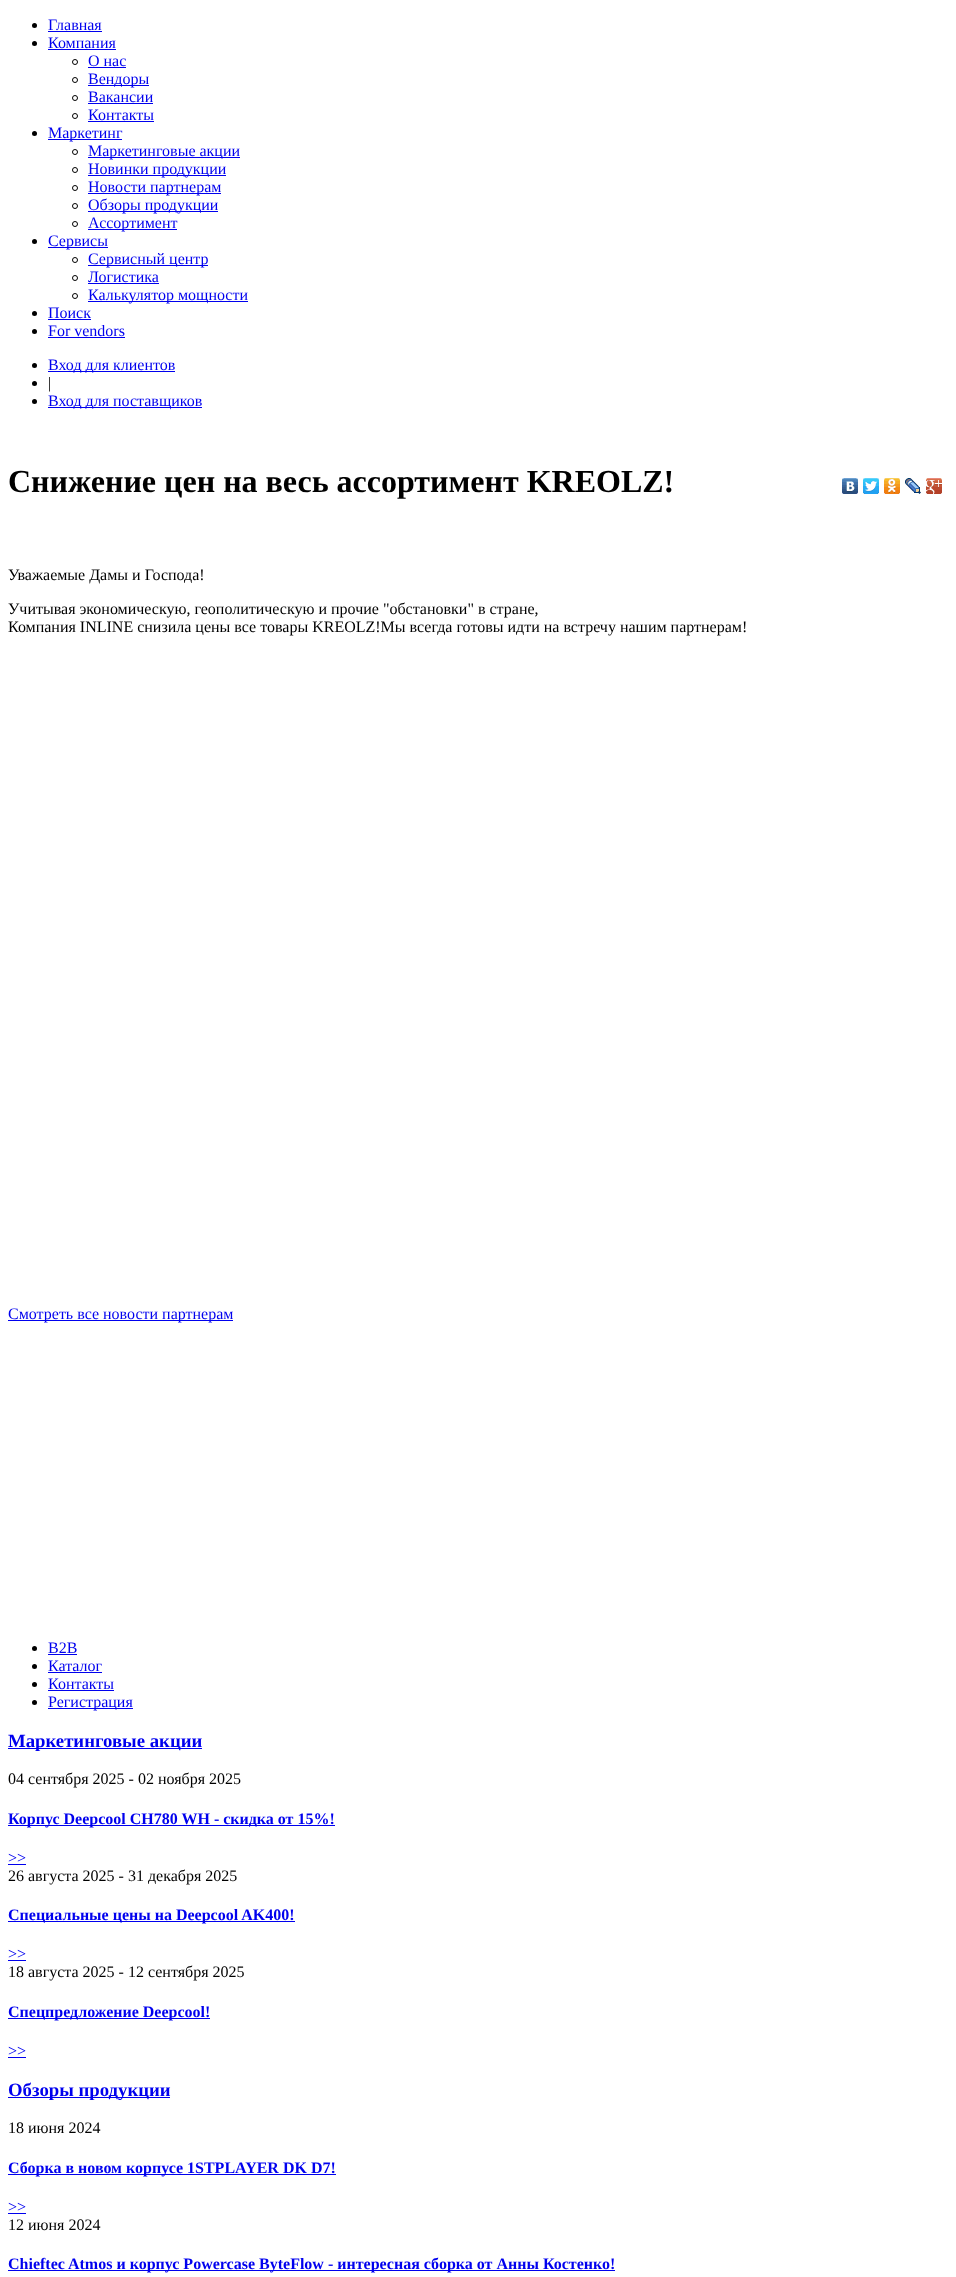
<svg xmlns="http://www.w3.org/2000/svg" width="956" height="2277">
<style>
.a{font:16px Liberation Serif;fill:#00e}
.b{font:16px Liberation Serif;fill:#000}
.c{font:bold 32px Liberation Serif;fill:#000}
.d{font:bold 18.75px Liberation Serif;fill:#00e}
.e{font:bold 16px Liberation Serif;fill:#00e}
</style>
<rect width="100%" height="100%" fill="#fff"/>
<circle fill="#000" cx="34.5" cy="25.5" r="2.5"/>
<path fill="#00e" d="M48 31h54v1H48z"/>
<circle fill="#000" cx="34.5" cy="43.5" r="2.5"/>
<path fill="#00e" d="M48 49h68v1H48z"/>
<circle fill="none" stroke="#000" cx="75" cy="62" r="2.5"/>
<path fill="#00e" d="M88 67h38v1H88z"/>
<circle fill="none" stroke="#000" cx="75" cy="80" r="2.5"/>
<path fill="#00e" d="M88 85h61v1H88z"/>
<circle fill="none" stroke="#000" cx="75" cy="98" r="2.5"/>
<path fill="#00e" d="M88 103h65v1H88z"/>
<circle fill="none" stroke="#000" cx="75" cy="116" r="2.5"/>
<path fill="#00e" d="M88 121h66v1H88z"/>
<circle fill="#000" cx="34.5" cy="133.5" r="2.5"/>
<path fill="#00e" d="M48 139h74v1H48z"/>
<circle fill="none" stroke="#000" cx="75" cy="152" r="2.5"/>
<path fill="#00e" d="M88 157h152v1H88z"/>
<circle fill="none" stroke="#000" cx="75" cy="170" r="2.5"/>
<path fill="#00e" d="M88 175h138v1H88z"/>
<circle fill="none" stroke="#000" cx="75" cy="188" r="2.5"/>
<path fill="#00e" d="M88 193h133v1H88z"/>
<circle fill="none" stroke="#000" cx="75" cy="206" r="2.5"/>
<path fill="#00e" d="M88 211h130v1H88z"/>
<circle fill="none" stroke="#000" cx="75" cy="224" r="2.5"/>
<path fill="#00e" d="M88 229h89v1H88z"/>
<circle fill="#000" cx="34.5" cy="241.5" r="2.5"/>
<path fill="#00e" d="M48 247h60v1H48z"/>
<circle fill="none" stroke="#000" cx="75" cy="260" r="2.5"/>
<path fill="#00e" d="M88 265h120v1H88z"/>
<circle fill="none" stroke="#000" cx="75" cy="278" r="2.5"/>
<path fill="#00e" d="M88 283h71v1H88z"/>
<circle fill="none" stroke="#000" cx="75" cy="296" r="2.5"/>
<path fill="#00e" d="M88 301h160v1H88z"/>
<circle fill="#000" cx="34.5" cy="313.5" r="2.5"/>
<path fill="#00e" d="M48 319h43v1H48z"/>
<circle fill="#000" cx="34.5" cy="331.5" r="2.5"/>
<path fill="#00e" d="M48 337h77v1H48z"/>
<circle fill="#000" cx="34.5" cy="365.5" r="2.5"/>
<path fill="#00e" d="M48 371h127v1H48z"/>
<circle fill="#000" cx="34.5" cy="383.5" r="2.5"/>
<circle fill="#000" cx="34.5" cy="401.5" r="2.5"/>
<path fill="#00e" d="M48 407h154v1H48z"/>
<image href="1.png" x="842" y="478" width="16" height="16"/>
<image href="2.png" x="863" y="478" width="16" height="16"/>
<image href="3.png" x="884" y="478" width="16" height="16"/>
<image href="4.png" x="905" y="478" width="16" height="16"/>
<image href="5.png" x="926" y="478" width="16" height="16"/>
<path fill="#00e" d="M8 1320h225v1H8z"/>
<circle fill="#000" cx="34.5" cy="1648.5" r="2.5"/>
<path fill="#00e" d="M48 1654h29v1H48z"/>
<circle fill="#000" cx="34.5" cy="1666.5" r="2.5"/>
<path fill="#00e" d="M48 1672h54v1H48z"/>
<circle fill="#000" cx="34.5" cy="1684.5" r="2.5"/>
<path fill="#00e" d="M48 1690h66v1H48z"/>
<circle fill="#000" cx="34.5" cy="1702.5" r="2.5"/>
<path fill="#00e" d="M48 1708h85v1H48z"/>
<path fill="#00e" d="M8 1748h194v1H8z"/>
<path fill="#00e" d="M8 1825h327v1H8z"/>
<path fill="#00e" d="M8 1864h18v1H8z"/>
<path fill="#00e" d="M8 1921h287v1H8z"/>
<path fill="#00e" d="M8 1960h18v1H8z"/>
<path fill="#00e" d="M8 2018h202v1H8z"/>
<path fill="#00e" d="M8 2057h18v1H8z"/>
<path fill="#00e" d="M8 2097h162v1H8z"/>
<path fill="#00e" d="M8 2174h328v1H8z"/>
<path fill="#00e" d="M8 2213h18v1H8z"/>
<path fill="#00e" d="M8 2270h607v1H8z"/>
<text class="a" x="48" y="30">Главная</text>
<text class="a" x="48" y="48">Компания</text>
<text class="a" x="88" y="66">О нас</text>
<text class="a" x="88" y="84">Вендоры</text>
<text class="a" x="88" y="102">Вакансии</text>
<text class="a" x="88" y="120">Контакты</text>
<text class="a" x="48" y="138">Маркетинг</text>
<text class="a" x="88" y="156">Маркетинговые акции</text>
<text class="a" x="88" y="174">Новинки продукции</text>
<text class="a" x="88" y="192">Новости партнерам</text>
<text class="a" x="88" y="210">Обзоры продукции</text>
<text class="a" x="88" y="228">Ассортимент</text>
<text class="a" x="48" y="246">Сервисы</text>
<text class="a" x="88" y="264">Сервисный центр</text>
<text class="a" x="88" y="282">Логистика</text>
<text class="a" x="88" y="300">Калькулятор мощности</text>
<text class="a" x="48" y="318">Поиск</text>
<text class="a" x="48" y="336">For vendors</text>
<text class="a" x="48" y="370">Вход для клиентов</text>
<text class="b" x="48" y="388">|</text>
<text class="a" x="48" y="406">Вход для поставщиков</text>
<text class="c" x="8" y="492">Снижение цен на весь ассортимент KREOLZ!</text>
<text class="b" x="8" y="580">Уважаемые Дамы и Господа!</text>
<text class="b" x="8" y="614">Учитывая экономическую, геополитическую и прочие "обстановки" в стране,</text>
<text class="b" x="8" y="632">Компания INLINE снизила цены все товары KREOLZ!Мы всегда готовы идти на встречу нашим партнерам!</text>
<text class="a" x="8" y="1319">Смотреть все новости партнерам</text>
<text class="a" x="48" y="1653">B2B</text>
<text class="a" x="48" y="1671">Каталог</text>
<text class="a" x="48" y="1689">Контакты</text>
<text class="a" x="48" y="1707">Регистрация</text>
<text class="d" x="8" y="1747">Маркетинговые акции</text>
<text class="b" x="8" y="1784">04 сентября 2025 - 02 ноября 2025</text>
<text class="e" x="8" y="1824">Корпус Deepcool CH780 WH - скидка от 15%!</text>
<text class="a" x="8" y="1863">&gt;&gt;</text>
<text class="b" x="8" y="1881">26 августа 2025 - 31 декабря 2025</text>
<text class="e" x="8" y="1920">Специальные цены на Deepcool AK400!</text>
<text class="a" x="8" y="1959">&gt;&gt;</text>
<text class="b" x="8" y="1977">18 августа 2025 - 12 сентября 2025</text>
<text class="e" x="8" y="2017">Спецпредложение Deepcool!</text>
<text class="a" x="8" y="2056">&gt;&gt;</text>
<text class="d" x="8" y="2096">Обзоры продукции</text>
<text class="b" x="8" y="2133">18 июня 2024</text>
<text class="e" x="8" y="2173">Сборка в новом корпусе 1STPLAYER DK D7!</text>
<text class="a" x="8" y="2212">&gt;&gt;</text>
<text class="b" x="8" y="2230">12 июня 2024</text>
<text class="e" x="8" y="2269">Chieftec Atmos и корпус Powercase ByteFlow - интересная сборка от Анны Костенко!</text>
</svg>
